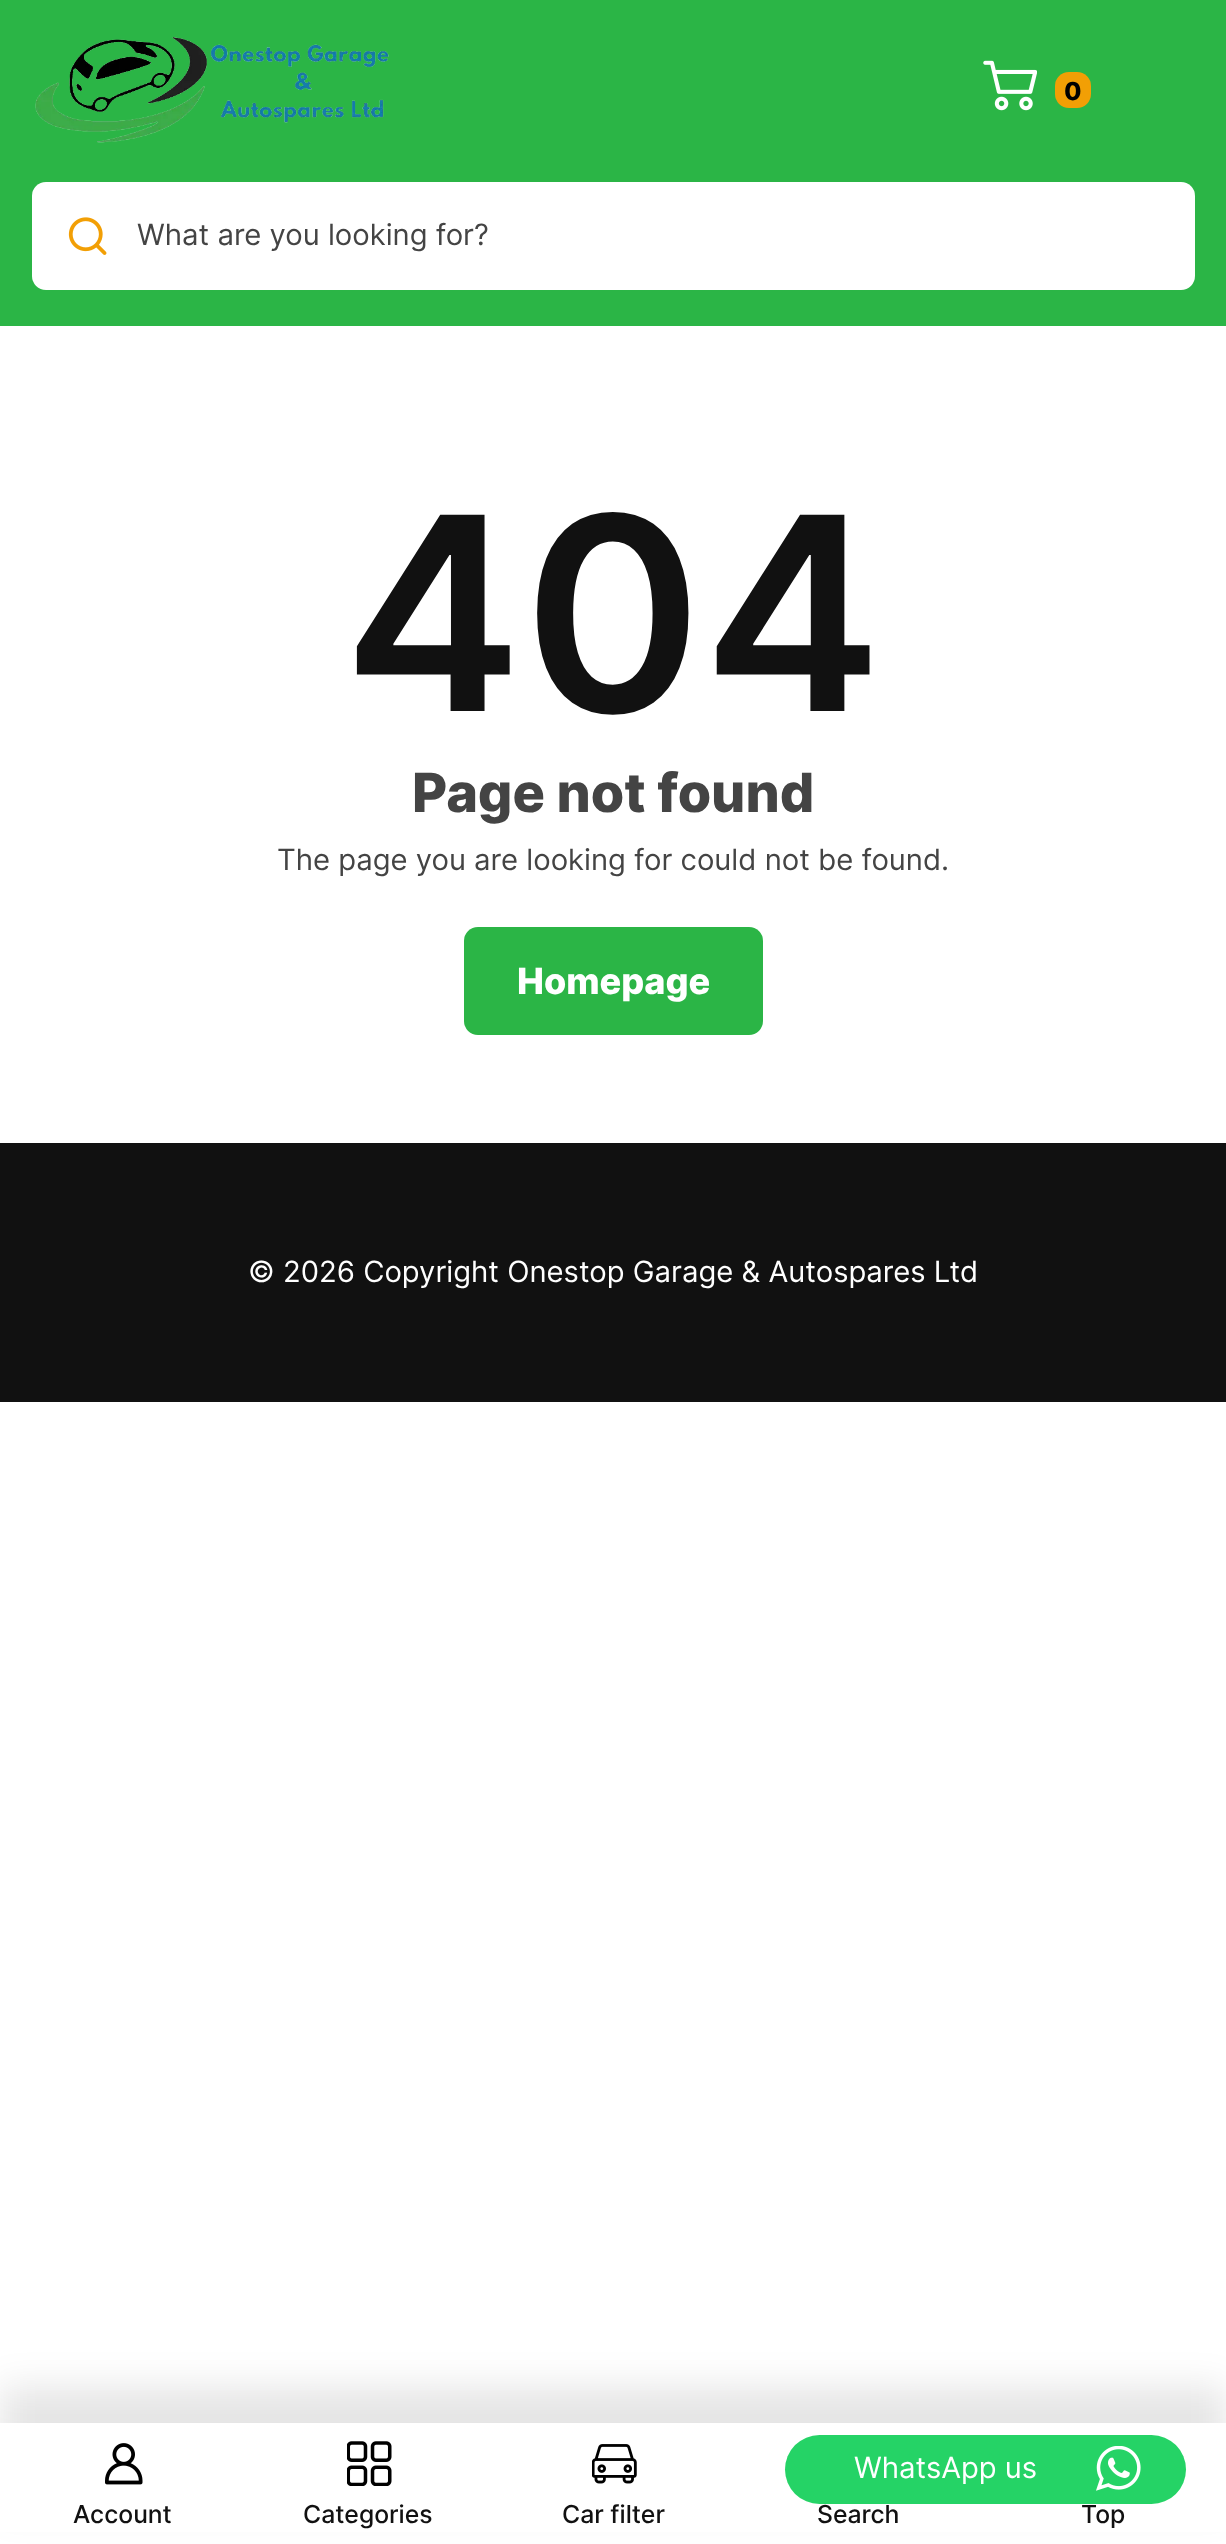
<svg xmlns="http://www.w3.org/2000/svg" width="1226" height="2544">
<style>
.a{font:800 24.75px Inter;fill:#000}
.b{font:29.25px Inter;fill:#444}
.c{font:600 270px Inter;fill:#111}
.d{font:800 54px Inter;fill:#444}
.e{font:800 36px Inter;fill:#fff}
.f{font:29.25px Inter;fill:#fff}
.g{font:500 24.75px Inter;fill:#111}
</style>
<rect width="100%" height="100%" fill="#fff"/>
<path fill="#2bb546" d="M0 0h1226v326H0z"/>
<image href="1.png" x="35" y="37" width="354" height="106"/>
<image href="2.png" x="983" y="60" width="54" height="51"/>
<rect fill="#f29f05" x="1055" y="72" width="36" height="36" rx="14"/>
<rect fill="#fff" x="32" y="182" width="1163" height="108" rx="14"/>
<image href="3.png" x="68" y="217" width="39" height="38"/>
<rect fill="#2bb546" x="464" y="927" width="299" height="108" rx="14"/>
<path fill="#111" d="M0 1143h1226v259H0z"/>
<path fill="#0000001a" filter="blur(18px)" d="M0 2387h1226v122H0z"/>
<path fill="#fff" d="M736 2423h490v109H736z"/>
<rect fill="#25d366" x="785" y="2435" width="401" height="69" rx="34.5"/>
<image href="4.png" x="1096" y="2446" width="45" height="45"/>
<path fill="#fff" d="M0 2423h736v109H0z"/>
<image href="5.png" x="105" y="2443" width="38" height="42"/>
<image href="6.png" x="347" y="2441" width="45" height="45"/>
<image href="7.png" x="592" y="2444" width="45" height="40"/>
<text class="a" x="1064" y="100">0</text>
<text class="b" x="137" y="245">What are you looking for?</text>
<text class="c" x="343" y="711">404</text>
<text class="d" x="412" y="812">Page not found</text>
<text class="b" x="277" y="870">The page you are looking for could not be found.</text>
<text class="e" x="517" y="994">Homepage</text>
<text class="f" x="248" y="1282">© 2026 Copyright Onestop Garage &amp; Autospares Ltd</text>
<text class="f" x="854" y="2478">WhatsApp us</text>
<text class="g" x="73" y="2523">Account</text>
<text class="g" x="303" y="2523">Categories</text>
<text class="g" x="562" y="2523">Car filter</text>
<text class="g" x="817" y="2523">Search</text>
<text class="g" x="1081" y="2523">Top</text>
</svg>
